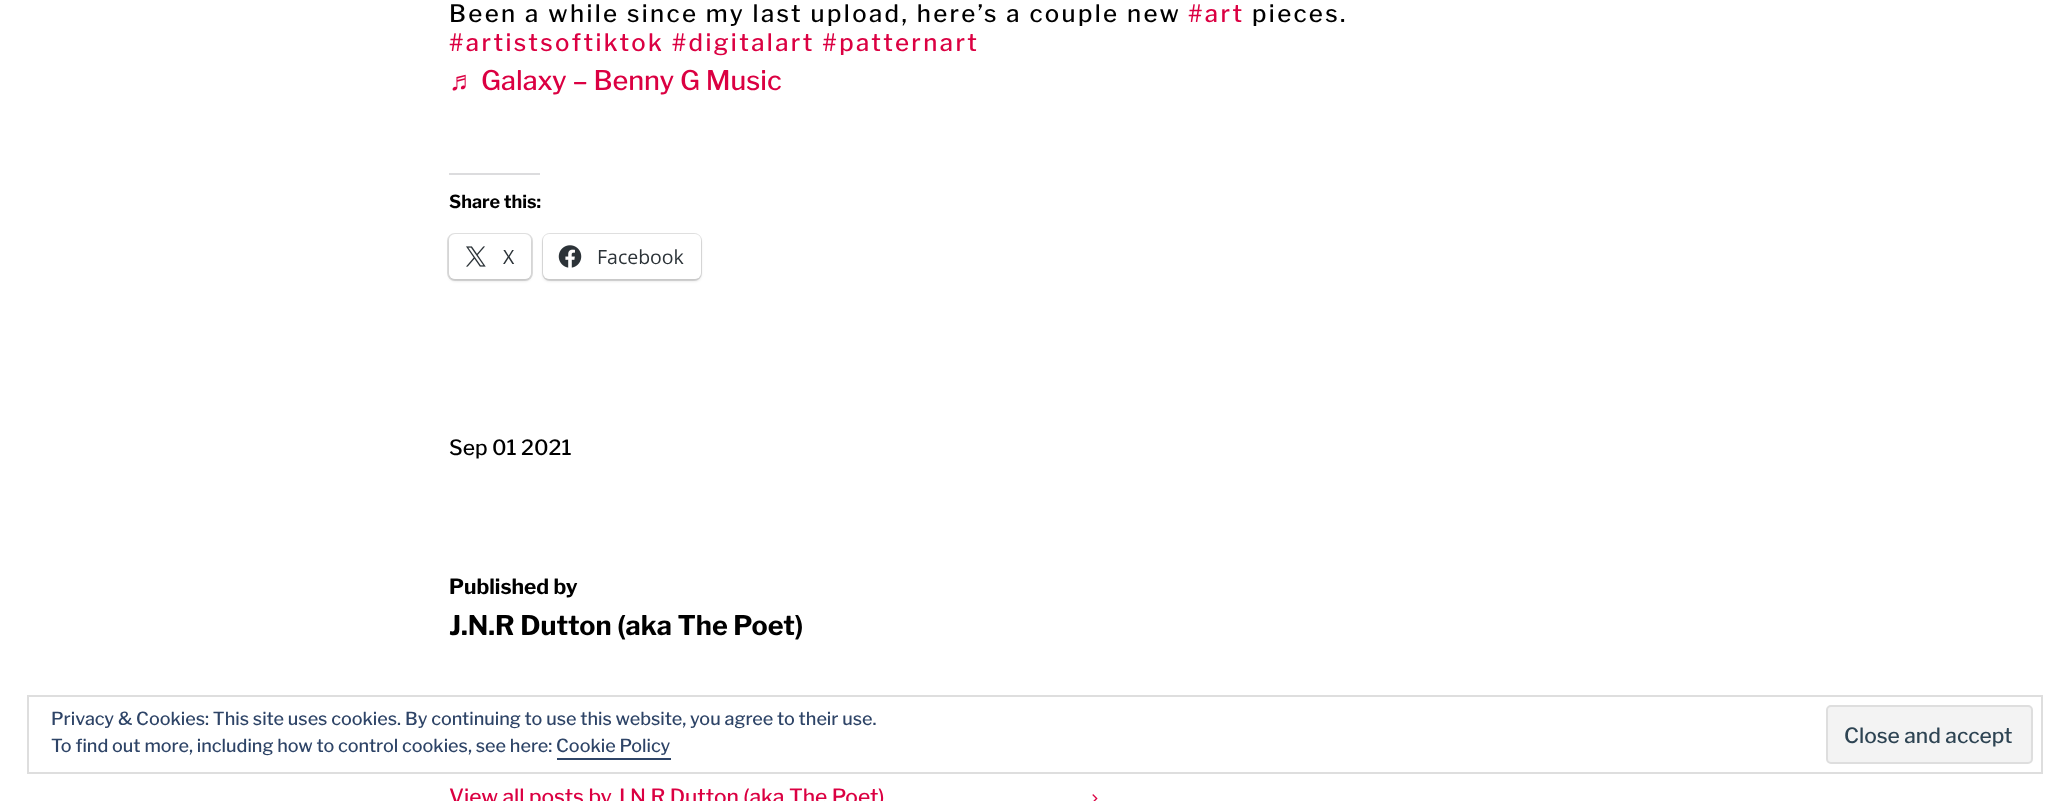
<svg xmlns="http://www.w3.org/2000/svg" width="2070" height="801">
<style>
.a{font:500 24px Libre Franklin;letter-spacing:2.4px;fill:#000}
.b{font:500 24px Libre Franklin;letter-spacing:2.4px;fill:#db0042}
.c{font:27px Liberation Sans;fill:#db0042}
.d{font:500 27px Libre Franklin;fill:#db0042}
.e{font:bold 18px Libre Franklin;fill:#000}
.f{font:19.5px Open Sans;fill:#2c3338}
.g{font:500 21px Libre Franklin;fill:#000}
.h{font:bold 21px Libre Franklin;fill:#000}
.i{font:bold 27px Libre Franklin;fill:#000}
.j{font:500 21px Libre Franklin;fill:#db0042}
.k{font:500 18px Libre Franklin;fill:#2e4467}
.l{font:500 21px Libre Franklin;fill:#2e4453}
</style>
<rect width="100%" height="100%" fill="#fff"/>
<path fill="#dcdcde" d="M449 173h91v2H449z"/>
<rect fill="none" stroke="#e0e0e0" stroke-width="2" x="448" y="234" width="84" height="46" rx="7"/>
<rect fill="#0000001f" filter="blur(1.5px)" x="449" y="236" width="82" height="45" rx="6"/>
<rect fill="#fff" x="449" y="234" width="82" height="45" rx="6"/>
<image href="1.png" x="466" y="246" width="20" height="21"/>
<rect fill="none" stroke="#e0e0e0" stroke-width="2" x="543" y="234" width="158" height="46" rx="7"/>
<rect fill="#0000001f" filter="blur(1.5px)" x="543" y="236" width="158" height="45" rx="6"/>
<rect fill="#fff" x="543" y="234" width="158" height="45" rx="6"/>
<image href="2.png" x="558" y="245" width="24" height="23"/>
<image href="3.png" x="1092" y="794" width="6" height="7"/>
<path fill="none" stroke="#dedede" stroke-width="2" d="M28 696h2014v77H28z"/>
<rect fill="#f3f3f3" stroke="#dedede" stroke-width="2" x="1827" y="706" width="205" height="57" rx="4"/>
<path fill="#2e4467" d="M557 758h114v2H557z"/>
<text class="a" x="449" y="22">Been a while since my last upload, here’s a couple new</text>
<text class="b" x="1188" y="22">#art</text>
<text class="a" x="1252" y="22">pieces.</text>
<text class="b" x="449" y="51">#artistsoftiktok #digitalart #patternart</text>
<text class="c" x="449" y="90">♬</text>
<text class="d" x="481" y="90">Galaxy – Benny G Music</text>
<text class="e" x="449" y="208">Share this:</text>
<text class="f" x="503" y="264">X</text>
<text class="f" x="597" y="264">Facebook</text>
<text class="g" x="449" y="455">Sep 01 2021</text>
<text class="h" x="449" y="594">Published by</text>
<text class="i" x="449" y="635">J.N.R Dutton (aka The Poet)</text>
<text class="j" x="449" y="804">View all posts by J.N.R Dutton (aka The Poet)</text>
<text class="k" x="51" y="725">Privacy &amp; Cookies: This site uses cookies. By continuing to use this website, you agree to their use.</text>
<text class="k" x="51" y="752">To find out more, including how to control cookies, see here: Cookie Policy</text>
<text class="l" x="1844" y="743">Close and accept</text>
</svg>
